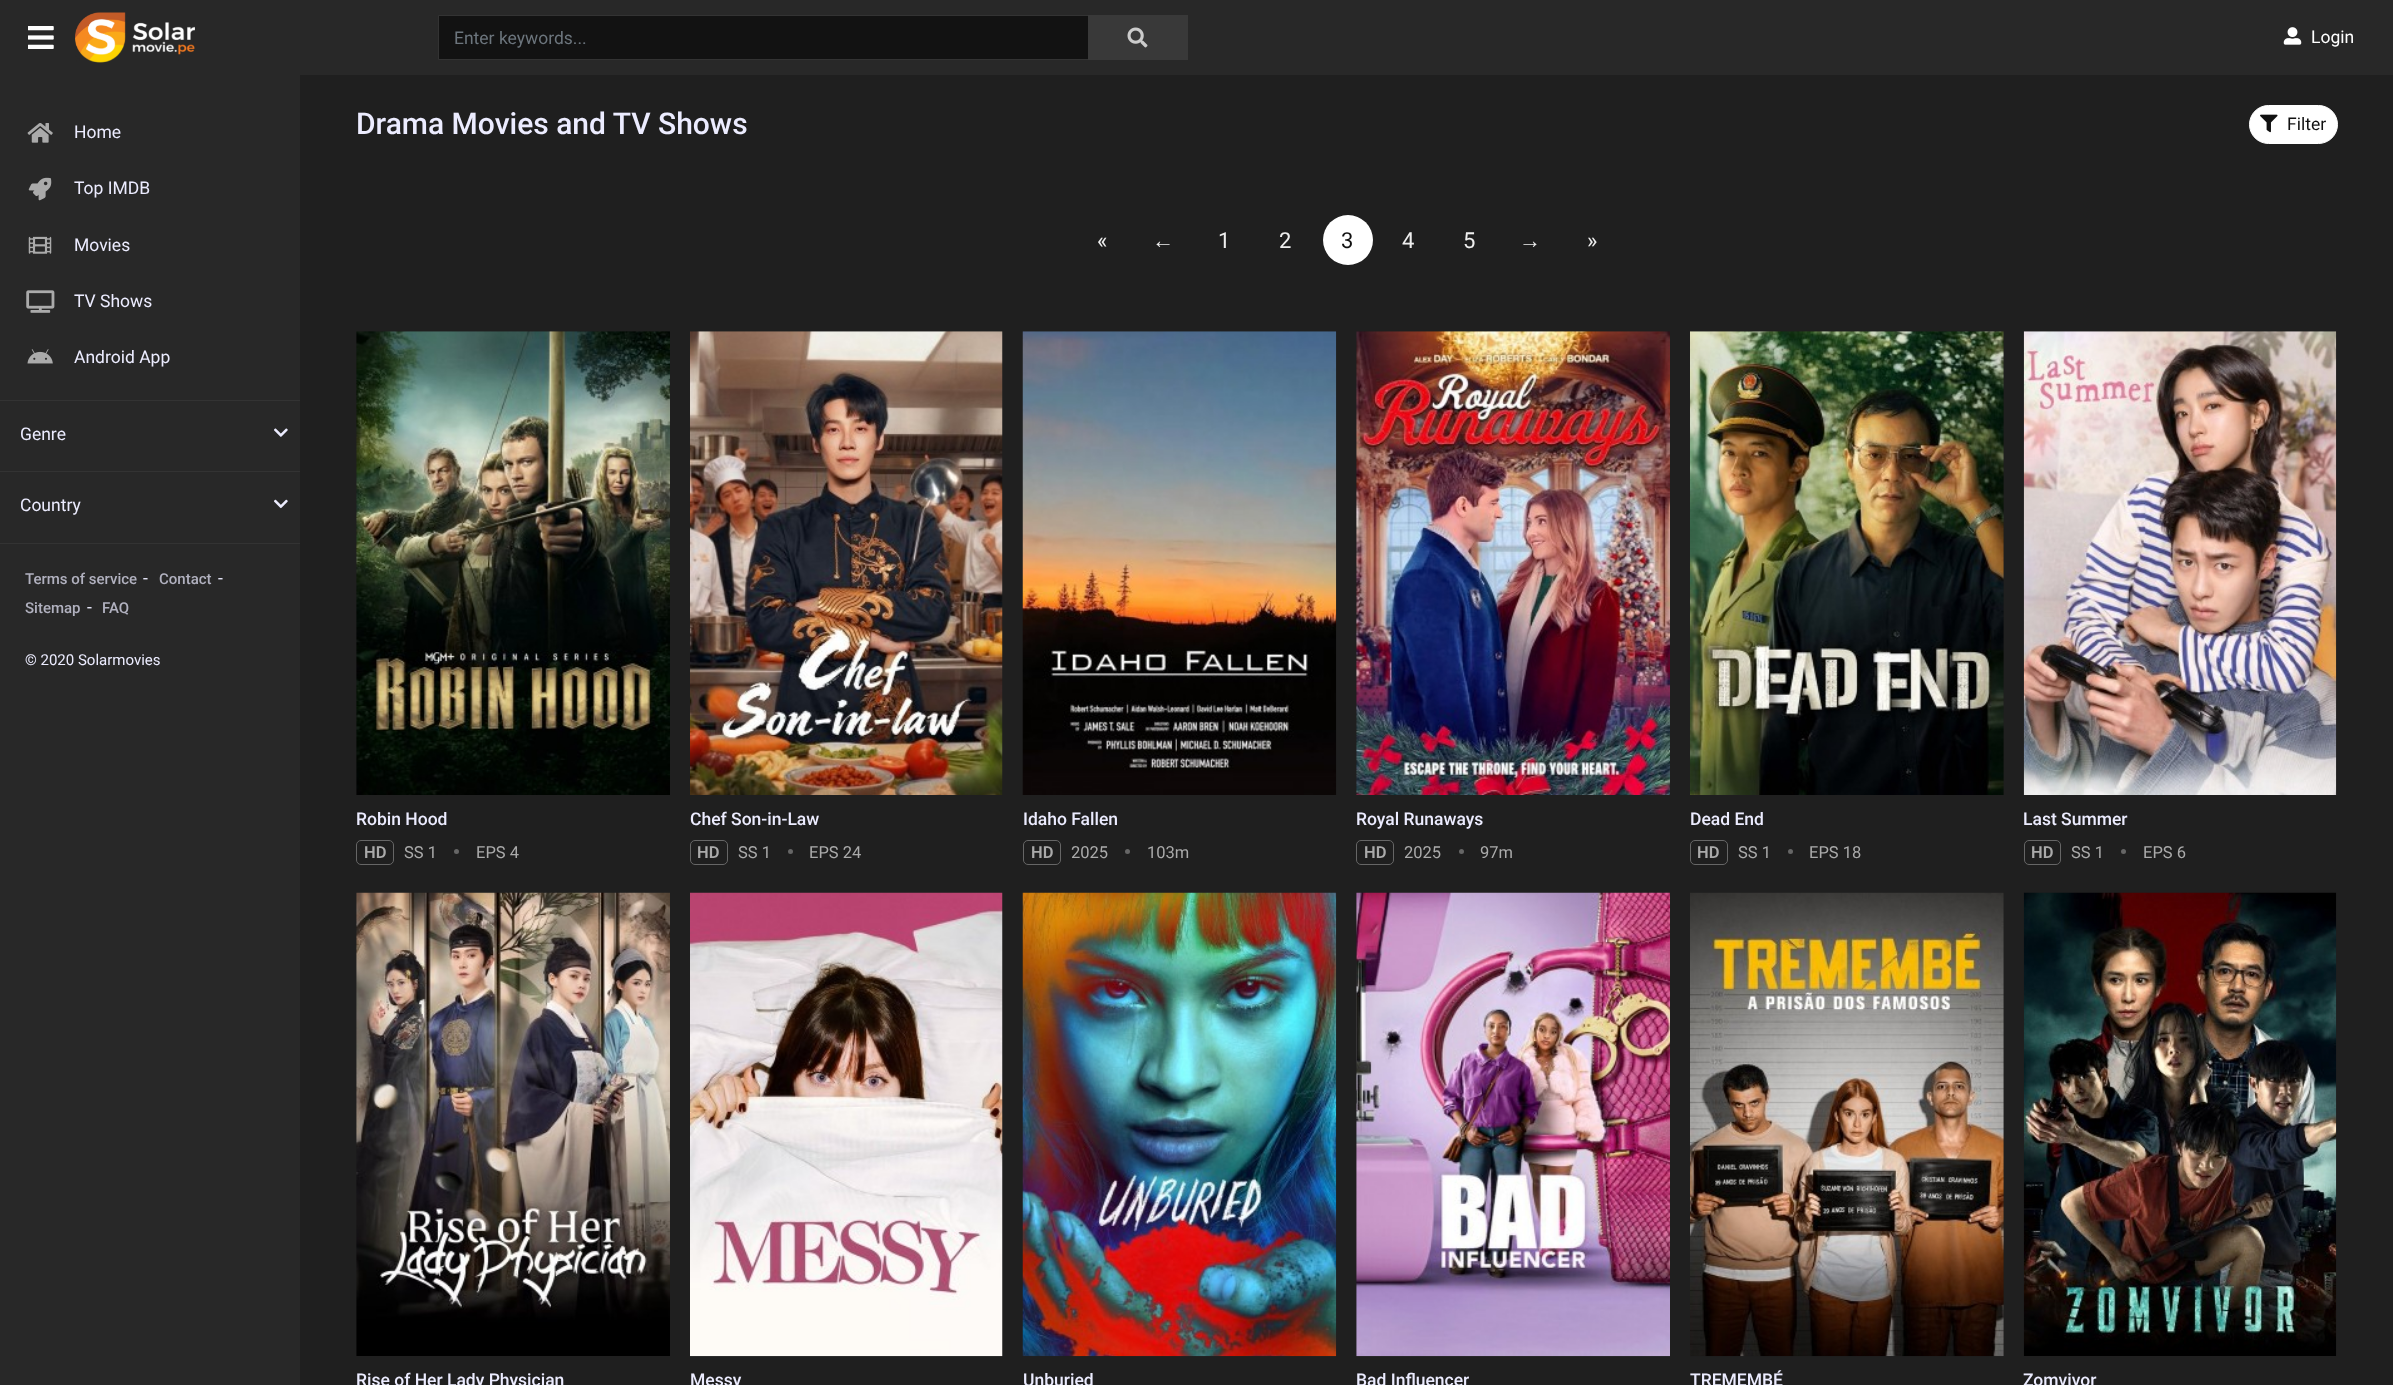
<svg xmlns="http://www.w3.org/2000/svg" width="2393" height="1385">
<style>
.a{font:17.5px Roboto;fill:#ececff}
.b{font:500 15px Roboto;fill:#b1b1bf}
.c{font:15px Roboto;fill:#ececff}
.d{font:17.5px Roboto;fill:#6c757d}
.e{font:17.5px Roboto;fill:#fff}
.f{font:500 30px Roboto;fill:#ececff}
.g{font:17.5px Roboto;fill:#111}
.h{font:22px Roboto;fill:#eee}
.i{font:22px Liberation Sans;fill:#eee}
.j{font:22px Roboto;fill:#111}
.k{font:500 17.5px Roboto;fill:#ececff}
.l{font:600 16.5px Roboto;fill:#aaa}
.m{font:16.5px Roboto;fill:#aaa}
</style>
<rect width="100%" height="100%" fill="#1f1f1f"/>
<path fill="#282828" d="M0 75h300v1310H0z"/>
<path fill="#333" d="M0 400h300v1H0z"/>
<image href="1.png" x="27" y="123" width="26" height="20"/>
<image href="2.png" x="28" y="177" width="24" height="24"/>
<image href="3.png" x="28" y="236" width="24" height="18"/>
<image href="4.png" x="26" y="290" width="29" height="23"/>
<image href="5.png" x="27" y="349" width="26" height="15"/>
<path fill="#333" d="M0 471h300v1H0z"/>
<image href="6.png" x="274" y="428" width="14" height="9"/>
<path fill="#333" d="M0 543h300v1H0z"/>
<image href="7.png" x="274" y="499" width="14" height="10"/>
<path fill="#282828" d="M0 0h2393v75H0z"/>
<image href="8.png" x="28" y="26" width="26" height="23"/>
<image href="9.png" x="75" y="12" width="120" height="51"/>
<path fill="#121212" d="M439 16h649v43H439z"/>
<path fill="none" stroke="#333" d="M438.5 15.5h749v44H438.5z"/>
<path fill="#393939" d="M1088 15h100v45H1088z"/>
<image href="10.png" x="1127" y="27" width="21" height="21"/>
<image href="11.png" x="2283" y="27" width="19" height="18"/>
<rect fill="#fff" stroke="#fff" x="2249.5" y="105.5" width="88" height="38" rx="19"/>
<image href="12.png" x="2260" y="114" width="18" height="19"/>
<circle fill="#fff" cx="1348" cy="240" r="25"/>
<image href="13.png" x="356" y="331" width="314" height="464"/>
<rect fill="none" stroke="#666" x="356.5" y="840.5" width="37" height="24" rx="4.5"/>
<circle fill="#666" cx="456.5" cy="851.5" r="2.5"/>
<image href="14.png" x="690" y="331" width="313" height="464"/>
<rect fill="none" stroke="#666" x="690.5" y="840.5" width="37" height="24" rx="4.5"/>
<circle fill="#666" cx="790.5" cy="851.5" r="2.5"/>
<image href="15.png" x="1022" y="331" width="315" height="464"/>
<rect fill="none" stroke="#666" x="1023.5" y="840.5" width="37" height="24" rx="4.5"/>
<circle fill="#666" cx="1127.5" cy="851.5" r="2.5"/>
<image href="16.png" x="1356" y="331" width="314" height="464"/>
<rect fill="none" stroke="#666" x="1356.5" y="840.5" width="37" height="24" rx="4.5"/>
<circle fill="#666" cx="1461.5" cy="851.5" r="2.5"/>
<image href="17.png" x="1690" y="331" width="314" height="464"/>
<rect fill="none" stroke="#666" x="1690.5" y="840.5" width="37" height="24" rx="4.5"/>
<circle fill="#666" cx="1790.5" cy="851.5" r="2.5"/>
<image href="18.png" x="2023" y="331" width="314" height="464"/>
<rect fill="none" stroke="#666" x="2024.5" y="840.5" width="36" height="24" rx="4.5"/>
<circle fill="#666" cx="2123.5" cy="851.5" r="2.5"/>
<image href="19.png" x="356" y="892" width="314" height="464"/>
<image href="20.png" x="690" y="892" width="313" height="465"/>
<image href="21.png" x="1022" y="892" width="315" height="465"/>
<image href="22.png" x="1356" y="892" width="314" height="465"/>
<image href="23.png" x="1690" y="892" width="314" height="465"/>
<image href="24.png" x="2023" y="892" width="314" height="464"/>
<text class="a" x="74" y="138">Home</text>
<text class="a" x="74" y="194">Top IMDB</text>
<text class="a" x="74" y="251">Movies</text>
<text class="a" x="74" y="307">TV Shows</text>
<text class="a" x="74" y="363">Android App</text>
<text class="a" x="20" y="440">Genre</text>
<text class="a" x="20" y="511">Country</text>
<text class="b" x="25" y="584">Terms of service</text>
<text class="a" x="143" y="584">-</text>
<text class="b" x="159" y="584">Contact</text>
<text class="a" x="218" y="584">-</text>
<text class="b" x="25" y="613">Sitemap</text>
<text class="a" x="87" y="613">-</text>
<text class="b" x="102" y="613">FAQ</text>
<text class="c" x="25" y="665">© 2020 Solarmovies</text>
<text class="d" x="454" y="44">Enter keywords...</text>
<text class="e" x="2311" y="43">Login</text>
<text class="f" x="356" y="134">Drama Movies and TV Shows</text>
<text class="g" x="2287" y="130">Filter</text>
<text class="h" x="1097" y="248">«</text>
<text class="i" x="1152" y="248">←</text>
<text class="h" x="1218" y="248">1</text>
<text class="h" x="1279" y="248">2</text>
<text class="j" x="1341" y="248">3</text>
<text class="h" x="1402" y="248">4</text>
<text class="h" x="1463" y="248">5</text>
<text class="i" x="1519" y="248">→</text>
<text class="h" x="1587" y="248">»</text>
<text class="k" x="356" y="825">Robin Hood</text>
<text class="l" x="364" y="858">HD</text>
<text class="m" x="404" y="858">SS 1</text>
<text class="m" x="476" y="858">EPS 4</text>
<text class="k" x="690" y="825">Chef Son-in-Law</text>
<text class="l" x="697" y="858">HD</text>
<text class="m" x="738" y="858">SS 1</text>
<text class="m" x="809" y="858">EPS 24</text>
<text class="k" x="1023" y="825">Idaho Fallen</text>
<text class="l" x="1031" y="858">HD</text>
<text class="m" x="1071" y="858">2025</text>
<text class="m" x="1147" y="858">103m</text>
<text class="k" x="1356" y="825">Royal Runaways</text>
<text class="l" x="1364" y="858">HD</text>
<text class="m" x="1404" y="858">2025</text>
<text class="m" x="1480" y="858">97m</text>
<text class="k" x="1690" y="825">Dead End</text>
<text class="l" x="1697" y="858">HD</text>
<text class="m" x="1738" y="858">SS 1</text>
<text class="m" x="1809" y="858">EPS 18</text>
<text class="k" x="2023" y="825">Last Summer</text>
<text class="l" x="2031" y="858">HD</text>
<text class="m" x="2071" y="858">SS 1</text>
<text class="m" x="2143" y="858">EPS 6</text>
<text class="k" x="356" y="1386">Rise of Her Lady Physician</text>
<text class="k" x="690" y="1386">Messy</text>
<text class="k" x="1023" y="1386">Unburied</text>
<text class="k" x="1356" y="1386">Bad Influencer</text>
<text class="k" x="1690" y="1386">TREMEMBÉ</text>
<text class="k" x="2023" y="1386">Zomvivor</text>
</svg>
